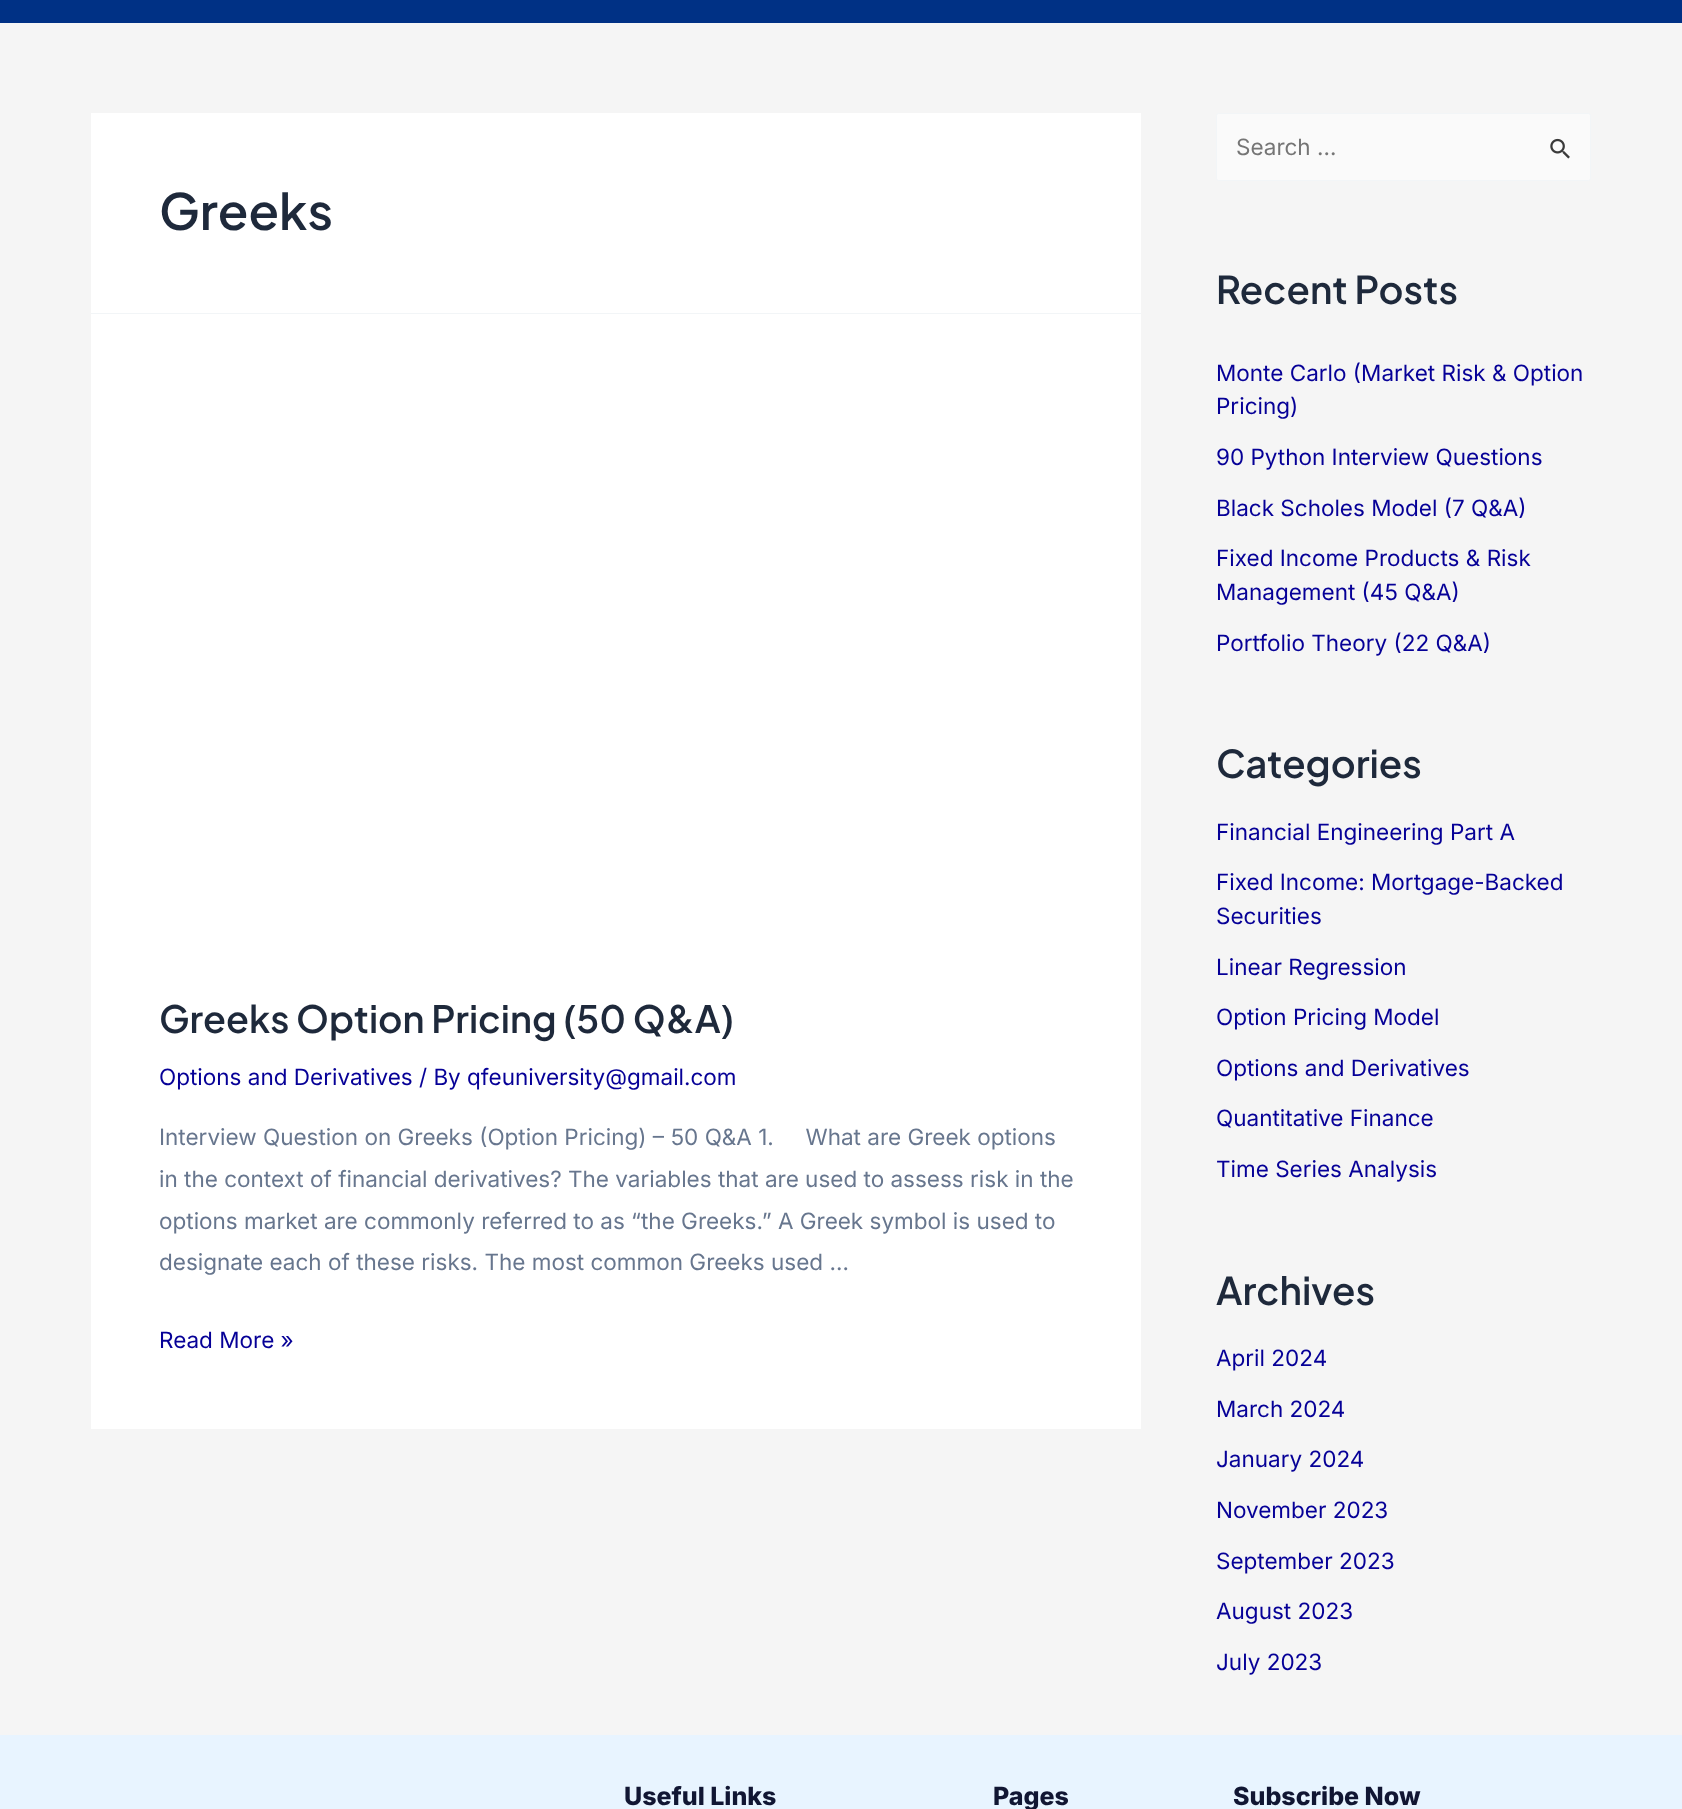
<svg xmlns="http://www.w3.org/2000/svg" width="1682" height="1809">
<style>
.a{font:600 50px Plus Jakarta Sans;fill:#1e293b}
.b{font:600 37.5px Plus Jakarta Sans;fill:#1e293b}
.c{font:22.5px Inter;fill:#060097}
.d{font:22.5px Inter;fill:#67768e}
.e{font:22.5px Inter;fill:#757575}
.f{font:600 38.25px Plus Jakarta Sans;fill:#1e293b}
.g{font:800 25px Inter;fill:#111633}
</style>
<rect width="100%" height="100%" fill="#f5f5f5"/>
<path fill="#003185" d="M0 0h1682v23H0z"/>
<path fill="#fff" d="M91 113h1050v200H91z"/>
<path fill="#f2f5f7" d="M91 313h1050v1H91z"/>
<path fill="#fff" d="M91 314h1050v1115H91z"/>
<rect fill="#fafafa" stroke="#f2f5f7" x="1216.5" y="113.5" width="374" height="67" rx="2"/>
<image href="1.png" x="1550" y="138" width="20" height="21"/>
<path fill="#e8f4ff" d="M0 1735h1682v74H0z"/>
<text class="a" x="159" y="230">Greeks</text>
<text class="b" x="159" y="1033">Greeks Option Pricing (50 Q&amp;A)</text>
<text class="c" x="159" y="1085">Options and Derivatives / By qfeuniversity@gmail.com</text>
<text class="d" xml:space="preserve" x="159" y="1145">Interview Question on Greeks (Option Pricing) – 50 Q&amp;A 1.     What are Greek options</text>
<text class="d" x="159" y="1187">in the context of financial derivatives? The variables that are used to assess risk in the</text>
<text class="d" x="159" y="1229">options market are commonly referred to as “the Greeks.” A Greek symbol is used to</text>
<text class="d" x="159" y="1270">designate each of these risks. The most common Greeks used …</text>
<text class="c" x="159" y="1348">Read More »</text>
<text class="e" x="1236" y="155">Search …</text>
<text class="f" x="1216" y="304">Recent Posts</text>
<text class="c" x="1216" y="381">Monte Carlo (Market Risk &amp; Option</text>
<text class="c" x="1216" y="414">Pricing)</text>
<text class="c" x="1216" y="465">90 Python Interview Questions</text>
<text class="c" x="1216" y="516">Black Scholes Model (7 Q&amp;A)</text>
<text class="c" x="1216" y="566">Fixed Income Products &amp; Risk</text>
<text class="c" x="1216" y="600">Management (45 Q&amp;A)</text>
<text class="c" x="1216" y="651">Portfolio Theory (22 Q&amp;A)</text>
<text class="f" x="1216" y="778">Categories</text>
<text class="c" x="1216" y="840">Financial Engineering Part A</text>
<text class="c" x="1216" y="890">Fixed Income: Mortgage-Backed</text>
<text class="c" x="1216" y="924">Securities</text>
<text class="c" x="1216" y="975">Linear Regression</text>
<text class="c" x="1216" y="1025">Option Pricing Model</text>
<text class="c" x="1216" y="1076">Options and Derivatives</text>
<text class="c" x="1216" y="1126">Quantitative Finance</text>
<text class="c" x="1216" y="1177">Time Series Analysis</text>
<text class="f" x="1216" y="1305">Archives</text>
<text class="c" x="1216" y="1366">April 2024</text>
<text class="c" x="1216" y="1417">March 2024</text>
<text class="c" x="1216" y="1467">January 2024</text>
<text class="c" x="1216" y="1518">November 2023</text>
<text class="c" x="1216" y="1569">September 2023</text>
<text class="c" x="1216" y="1619">August 2023</text>
<text class="c" x="1216" y="1670">July 2023</text>
<text class="g" x="624" y="1805">Useful Links</text>
<text class="g" x="993" y="1805">Pages</text>
<text class="g" x="1233" y="1805">Subscribe Now</text>
</svg>
